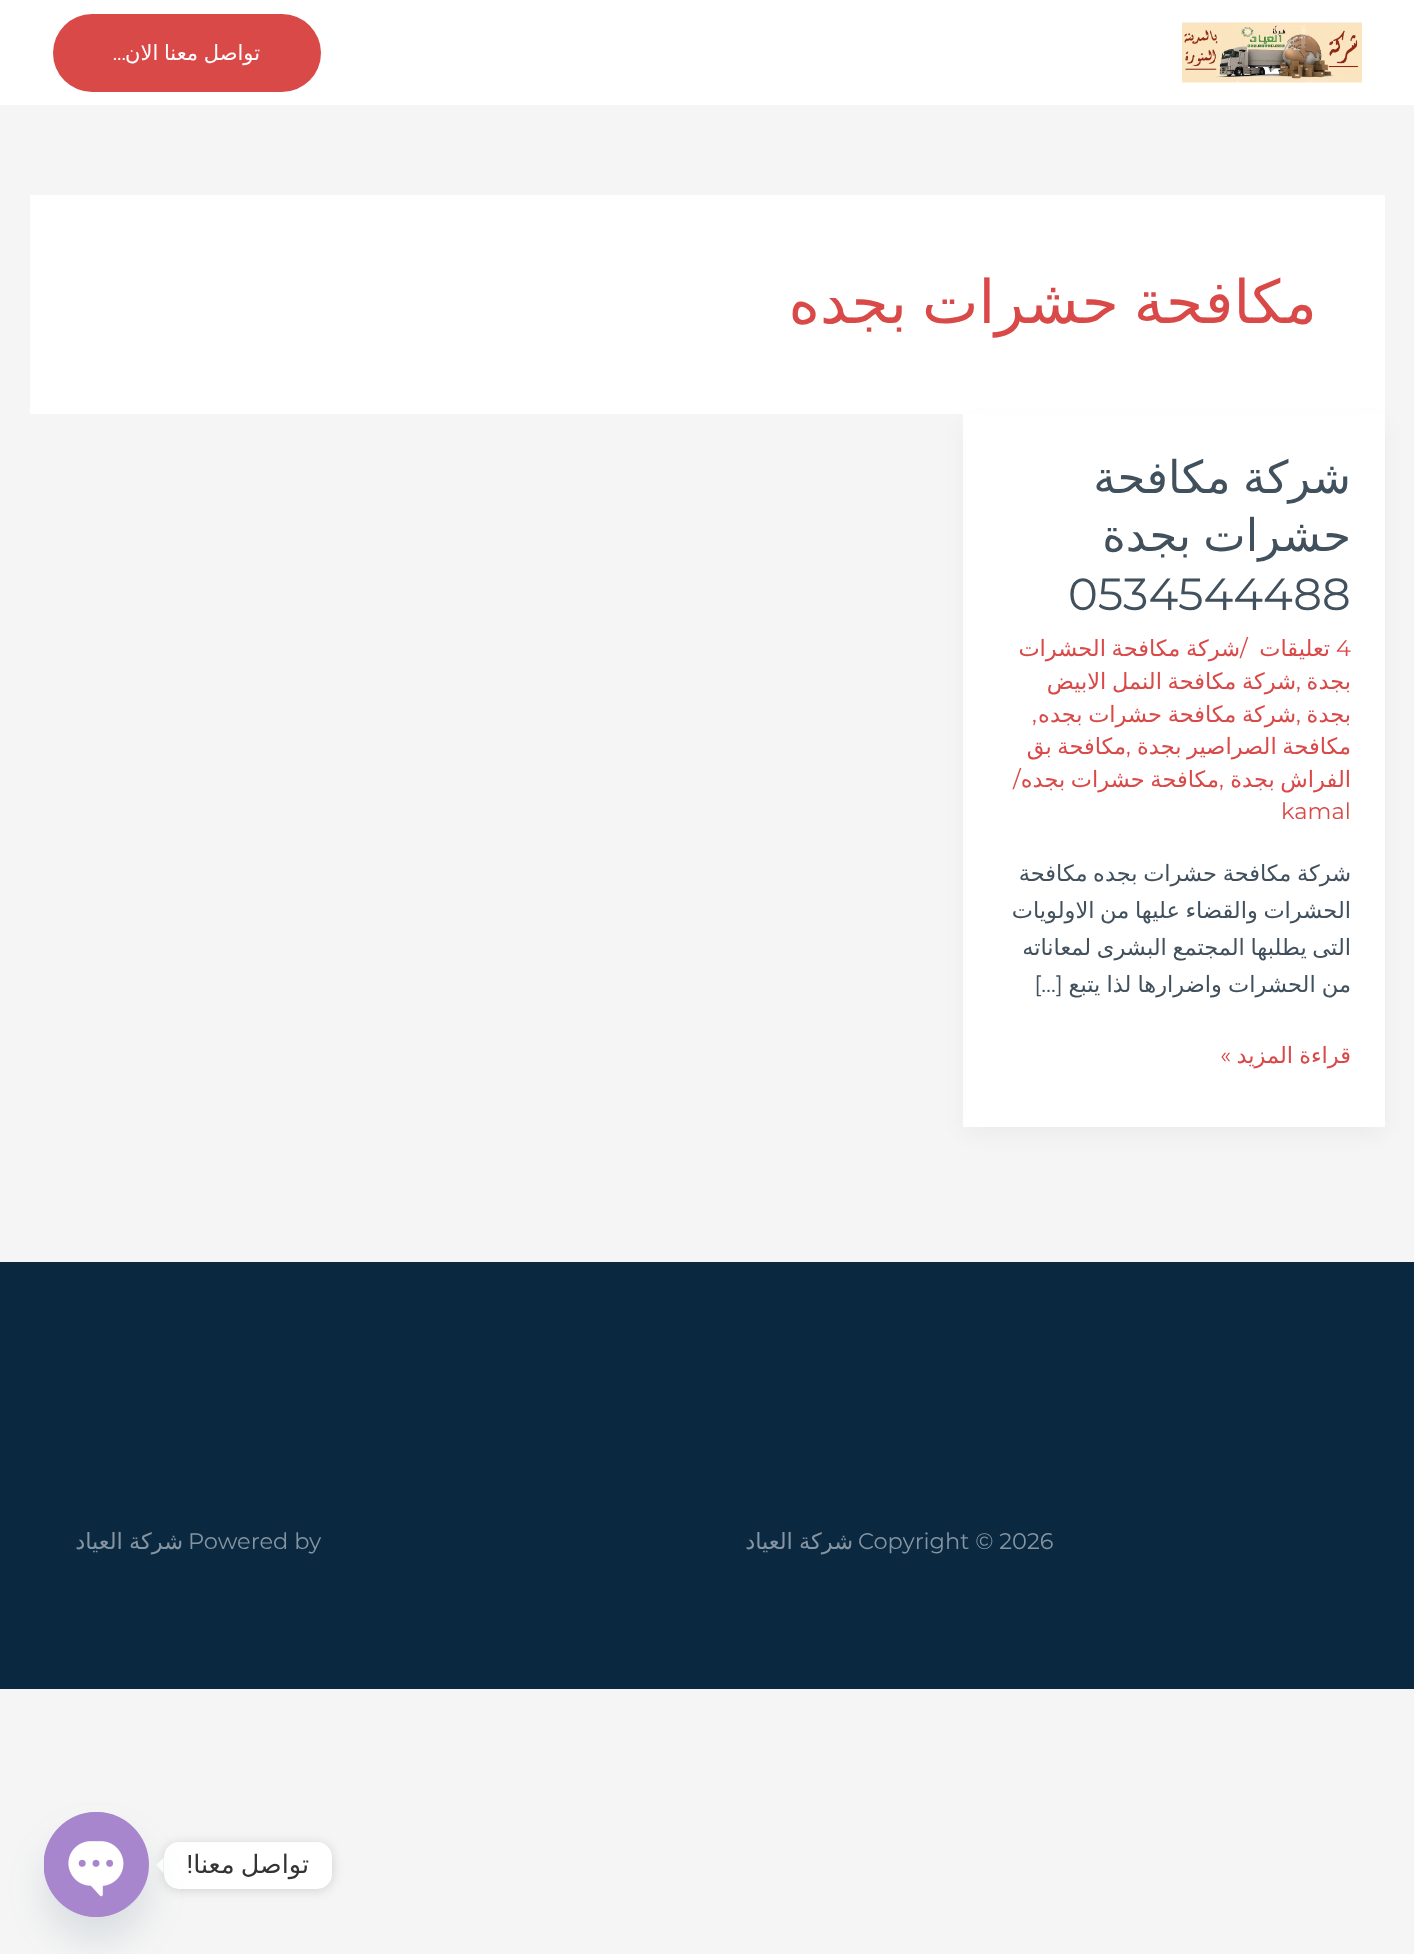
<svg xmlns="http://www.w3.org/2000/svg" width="1414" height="1954">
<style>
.a{font:21px DejaVu Sans;direction:rtl;fill:#fff}
.b{font:21px Montserrat;direction:rtl;fill:#fff}
.c{font:60px DejaVu Sans;direction:rtl;fill:#d94948}
.d{font:45px DejaVu Sans;direction:rtl;fill:#41505d}
.e{font:45px Montserrat;fill:#41505d}
.f{font:22.5px Montserrat;fill:#d94948}
.g{font:22.5px DejaVu Sans;direction:rtl;fill:#d94948}
.h{font:22.5px DejaVu Sans;direction:rtl;fill:#41505d}
.i{font:22.5px Montserrat;direction:rtl;fill:#41505d}
.j{font:22.5px Montserrat;direction:rtl;fill:#d94948}
.k{font:22.5px Montserrat;fill:#8594a0}
.l{font:22.5px DejaVu Sans;direction:rtl;fill:#8594a0}
.m{font:25.5px DejaVu Sans;direction:rtl;fill:#333}
.n{font:25.5px Roboto;direction:rtl;fill:#333}
</style>
<rect width="100%" height="100%" fill="#f5f5f5"/>
<path fill="#fff" d="M0 0h1414v105H0z"/>
<image href="1.png" x="1182" y="22" width="180" height="61"/>
<rect fill="#d94948" x="53" y="14" width="268" height="78" rx="39"/>
<path fill="#fff" d="M30 195h1355v219H30z"/>
<path fill="#1018280d" filter="blur(11px)" d="M966 426h416v707H966z"/>
<path fill="#fff" d="M963 414h422v713H963z"/>
<path fill="#0a2941" d="M0 1262h1414v427H0z"/>
<rect fill="#00000026" filter="blur(6px)" x="164" y="1844" width="168" height="46" rx="15"/>
<rect fill="#fff" x="164" y="1842" width="168" height="47" rx="15"/>
<path fill="#fff" d="M163.5 1858v15l-7.5-8z"/>
<rect fill="#49687e29" filter="blur(18px)" x="44" y="1836" width="105" height="105" rx="52.5"/>
<circle fill="#a886cd" cx="96.5" cy="1864.5" r="52.5"/>
<image href="2.png" x="44" y="1812" width="83" height="105"/>
<text class="a" x="260" y="60" word-spacing="-1">تواصل معنا الان</text>
<text class="b" x="126" y="60">...</text>
<text class="c" x="1317" y="323" word-spacing="-4">مكافحة حشرات بجده</text>
<text class="d" x="1351" y="493" word-spacing="-2">شركة مكافحة</text>
<text class="d" x="1351" y="551" word-spacing="-2">حشرات بجدة</text>
<text class="e" x="1068" y="610">0534544488</text>
<text class="f" x="1336" y="656">4</text>
<text class="g" x="1330" y="656">تعليقات</text>
<text class="f" x="1240" y="656">/</text>
<text class="g" x="1240" y="656" word-spacing="-1.5">شركة مكافحة الحشرات</text>
<text class="g" x="1351" y="689">بجدة</text>
<text class="f" x="1296" y="689">,</text>
<text class="g" x="1296" y="689" word-spacing="-1.5">شركة مكافحة النمل الابيض</text>
<text class="g" x="1351" y="722">بجدة</text>
<text class="f" x="1032" y="722">,</text>
<text class="f" x="1296" y="722">,</text>
<text class="g" x="1296" y="722" word-spacing="-1.5">شركة مكافحة حشرات بجده</text>
<text class="g" x="1351" y="754" word-spacing="-1.5">مكافحة الصراصير بجدة</text>
<text class="f" x="1126" y="754">,</text>
<text class="g" x="1126" y="754" word-spacing="-1.5">مكافحة بق</text>
<text class="g" x="1351" y="787" word-spacing="-1.5">الفراش بجدة</text>
<text class="f" x="1219" y="787">,</text>
<text class="g" x="1219" y="787" word-spacing="-1.5">مكافحة حشرات بجده</text>
<text class="f" x="1013" y="787">/</text>
<text class="f" x="1281" y="819">kamal</text>
<text class="h" x="1351" y="881" word-spacing="-1.5">شركة مكافحة حشرات بجده مكافحة</text>
<text class="h" x="1351" y="918" word-spacing="-1.5">الحشرات والقضاء عليها من الاولويات</text>
<text class="h" x="1351" y="955" word-spacing="-1.5">التى يطلبها المجتمع البشرى لمعاناته</text>
<text class="h" x="1351" y="992" word-spacing="-1">من الحشرات واضرارها لذا يتبع</text>
<text class="i" x="1063" y="992">[…]</text>
<text class="g" x="1351" y="1063" word-spacing="-1">قراءة المزيد</text>
<text class="j" x="1231" y="1063">»</text>
<text class="k" x="858" y="1549">Copyright © 2026</text>
<text class="l" x="853" y="1549" word-spacing="-1">شركة العياد</text>
<text class="k" x="188" y="1549">Powered by</text>
<text class="l" x="183" y="1549" word-spacing="-1">شركة العياد</text>
<text class="m" x="309" y="1873" word-spacing="-2">تواصل معنا</text>
<text class="n" x="193" y="1873">!</text>
</svg>
